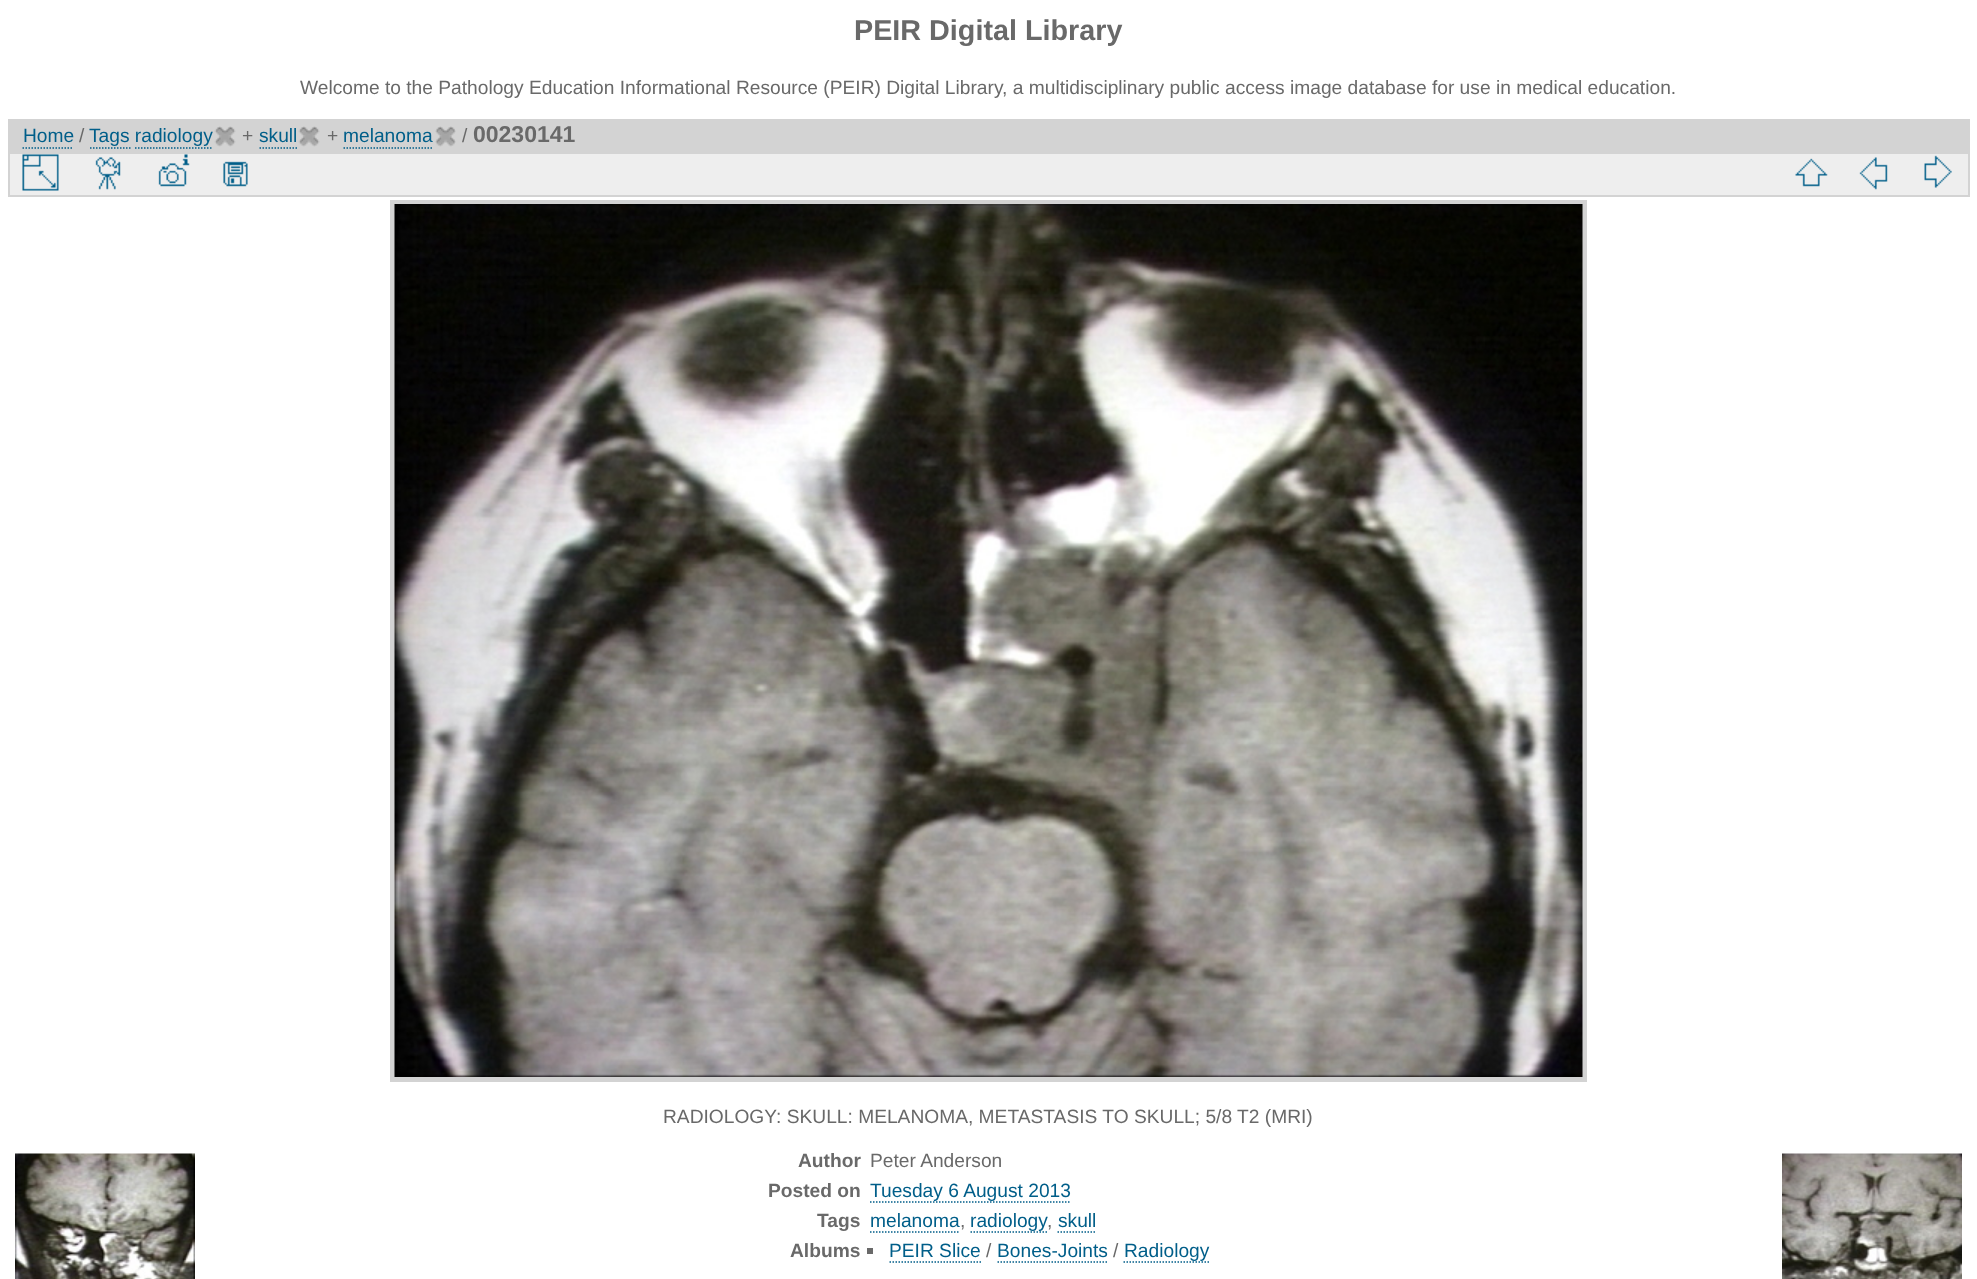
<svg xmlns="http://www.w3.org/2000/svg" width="1977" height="1279">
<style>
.a{font:bold 28.75px Liberation Sans;fill:#696969}
.b{font:19.2px Liberation Sans;fill:#696969}
.c{font:19.2px Liberation Sans;fill:#005e89}
.d{font:bold 23px Liberation Sans;fill:#696969}
.e{font:bold 19.2px Liberation Sans;fill:#696969}
</style>
<rect width="100%" height="100%" fill="#fff"/>
<path fill="#d3d3d3" d="M8 119h1962v33H8z"/>
<path fill="none" stroke="#005e89" stroke-width="1.5" stroke-dasharray="1.5 1.5" d="M22.5 148h51"/>
<path fill="none" stroke="#005e89" stroke-width="1.5" stroke-dasharray="1.5 1.5" d="M90 148h40.5"/>
<image href="1.png" x="214" y="126" width="22" height="21"/>
<path fill="none" stroke="#005e89" stroke-width="1.5" stroke-dasharray="1.5 1.5" d="M259.5 148h37.5"/>
<image href="2.png" x="298" y="126" width="22" height="21"/>
<path fill="none" stroke="#005e89" stroke-width="1.5" stroke-dasharray="1.5 1.5" d="M343.5 148h90"/>
<image href="3.png" x="435" y="126" width="21" height="21"/>
<path fill="none" stroke="#005e89" stroke-width="1.5" stroke-dasharray="1.5 1.5" d="M135 148h78"/>
<path fill="#eee" stroke="#d3d3d3" stroke-width="2" d="M9 153h1960v43H9z"/>
<image href="4.png" x="22" y="154" width="37" height="37"/>
<image href="5.png" x="95" y="157" width="26" height="33"/>
<image href="6.png" x="158" y="154" width="32" height="33"/>
<image href="7.png" x="223" y="161" width="25" height="26"/>
<image href="8.png" x="1795" y="158" width="33" height="29"/>
<image href="9.png" x="1859" y="157" width="29" height="33"/>
<image href="10.png" x="1924" y="155" width="28" height="33"/>
<path fill="none" stroke="#d3d3d3" stroke-width="5" d="M392.5 202.5h1192v877H392.5z"/>
<image href="11.png" x="394" y="204" width="1189" height="873"/>
<image href="12.png" x="15" y="1153" width="180" height="126"/>
<image href="13.png" x="1782" y="1153" width="180" height="126"/>
<path fill="none" stroke="#005e89" stroke-width="1.5" stroke-dasharray="1.5 1.5" d="M870 1202h201"/>
<path fill="none" stroke="#005e89" stroke-width="1.5" stroke-dasharray="1.5 1.5" d="M870 1232h90"/>
<path fill="none" stroke="#005e89" stroke-width="1.5" stroke-dasharray="1.5 1.5" d="M970.5 1232h76.5"/>
<path fill="none" stroke="#005e89" stroke-width="1.5" stroke-dasharray="1.5 1.5" d="M1057.5 1232h39"/>
<path fill="#696969" d="M867 1248h6v6H867z"/>
<path fill="none" stroke="#005e89" stroke-width="1.5" stroke-dasharray="1.5 1.5" d="M889.5 1262h91.5"/>
<path fill="none" stroke="#005e89" stroke-width="1.5" stroke-dasharray="1.5 1.5" d="M997.5 1262h111"/>
<path fill="none" stroke="#005e89" stroke-width="1.5" stroke-dasharray="1.5 1.5" d="M1123.5 1262h85.5"/>
<text class="a" x="854" y="40">PEIR Digital Library</text>
<text class="b" x="300" y="94">Welcome to the Pathology Education Informational Resource (PEIR) Digital Library, a multidisciplinary public access image database for use in medical education.</text>
<text class="c" x="23" y="142">Home</text>
<text class="b" x="79" y="142">/</text>
<text class="c" x="89" y="142">Tags radiology</text>
<text class="b" x="242" y="142">+</text>
<text class="c" x="259" y="142">skull</text>
<text class="b" x="327" y="142">+</text>
<text class="c" x="343" y="142">melanoma</text>
<text class="b" x="462" y="142">/</text>
<text class="d" x="473" y="142">00230141</text>
<text class="b" x="663" y="1123">RADIOLOGY: SKULL: MELANOMA, METASTASIS TO SKULL; 5/8 T2 (MRI)</text>
<text class="e" x="798" y="1167">Author</text>
<text class="b" x="870" y="1167">Peter Anderson</text>
<text class="e" x="768" y="1197">Posted on</text>
<text class="c" x="870" y="1197">Tuesday 6 August 2013</text>
<text class="e" x="817" y="1227">Tags</text>
<text class="c" x="870" y="1227">melanoma</text>
<text class="b" x="960" y="1227">,</text>
<text class="c" x="970" y="1227">radiology</text>
<text class="b" x="1047" y="1227">,</text>
<text class="c" x="1058" y="1227">skull</text>
<text class="e" x="790" y="1257">Albums</text>
<text class="c" x="889" y="1257">PEIR Slice</text>
<text class="b" x="986" y="1257">/</text>
<text class="c" x="997" y="1257">Bones-Joints</text>
<text class="b" x="1113" y="1257">/</text>
<text class="c" x="1124" y="1257">Radiology</text>
</svg>
